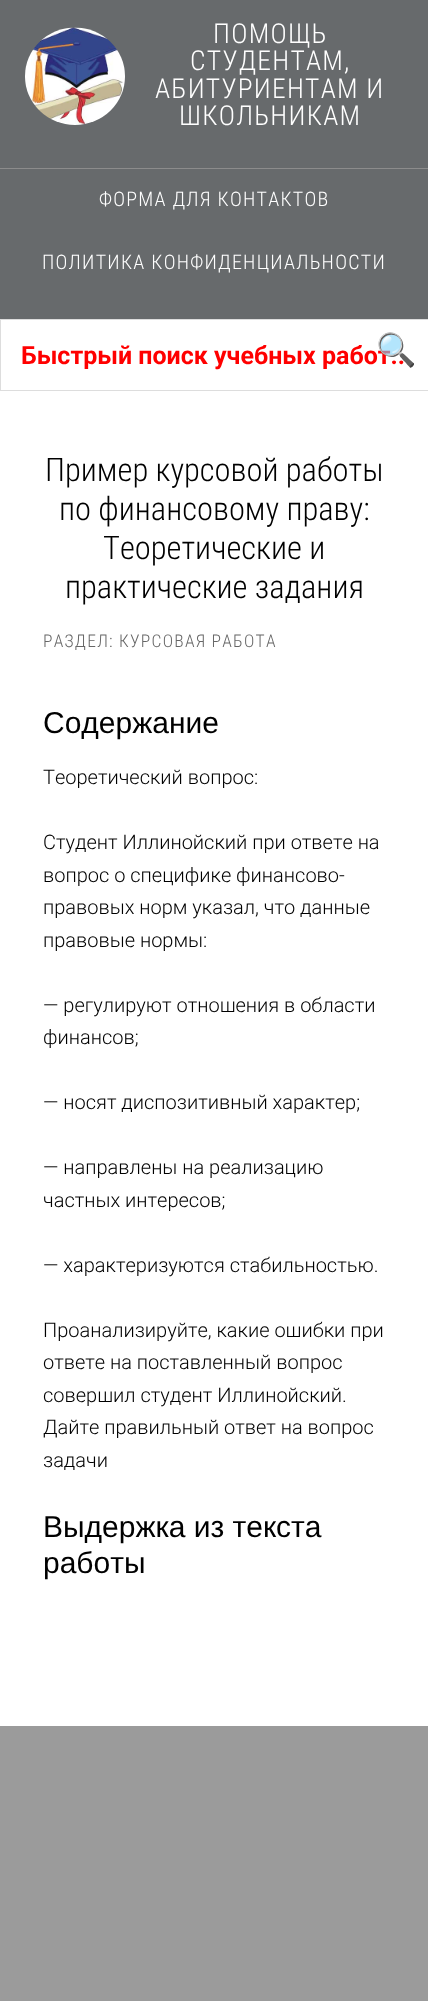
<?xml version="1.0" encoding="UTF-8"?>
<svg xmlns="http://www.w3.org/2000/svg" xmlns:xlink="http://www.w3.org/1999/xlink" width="428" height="2001">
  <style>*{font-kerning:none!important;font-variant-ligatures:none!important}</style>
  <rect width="100%" height="100%" fill="#9b9b9b" />
  <rect width="428" height="319" fill="#676a6c" />
  <image x="25" y="27" width="100" height="98" xlink:href="image1.png" />
  <rect y="168" width="428" height="1" fill="#8c8c8c" />
  <rect x="0.5" y="319.5" width="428" height="71" fill="#ffffff" stroke="#dddddd" />
  <rect y="391" width="428" height="1335" fill="#ffffff" />
  <text x="213" y="43" style="font-family: Roboto Condensed; font-size: 27.5px; font-weight: 300; letter-spacing: 1.25px; fill: #ffffff">ПОМОЩЬ</text>
  <text x="190" y="70" style="font-family: Roboto Condensed; font-size: 27.5px; font-weight: 300; letter-spacing: 1.25px; fill: #ffffff">СТУДЕНТАМ,</text>
  <text x="155" y="98" style="font-family: Roboto Condensed; font-size: 27.5px; font-weight: 300; letter-spacing: 1.25px; fill: #ffffff">АБИТУРИЕНТАМ И</text>
  <text x="179" y="125" style="font-family: Roboto Condensed; font-size: 27.5px; font-weight: 300; letter-spacing: 1.25px; fill: #ffffff">ШКОЛЬНИКАМ</text>
  <text x="99" y="206" style="font-family: Roboto Condensed; font-size: 20px; font-weight: 300; letter-spacing: 1.25px; fill: #ffffff">ФОРМА ДЛЯ КОНТАКТОВ</text>
  <text x="42" y="269" style="font-family: Roboto Condensed; font-size: 20px; font-weight: 300; letter-spacing: 1.25px; fill: #ffffff">ПОЛИТИКА КОНФИДЕНЦИАЛЬНОСТИ</text>
  <text x="21" y="364" style="font-family: Roboto; font-size: 25px; font-weight: bold; fill: #ff0000">Быстрый поиск учебных работ..</text>
  <text x="376" y="361" style="font-family: Noto Color Emoji; font-size: 32.5px; fill: #ccbcbc">🔍</text>
  <text x="45" y="481" style="font-family: Roboto Condensed; font-size: 32.5px; font-weight: 300; fill: #000000">Пример курсовой работы</text>
  <text x="59" y="520" style="font-family: Roboto Condensed; font-size: 32.5px; font-weight: 300; fill: #000000">по финансовому праву:</text>
  <text x="103" y="559" style="font-family: Roboto Condensed; font-size: 32.5px; font-weight: 300; fill: #000000">Теоретические и</text>
  <text x="65" y="598" style="font-family: Roboto Condensed; font-size: 32.5px; font-weight: 300; fill: #000000">практические задания</text>
  <text x="43" y="647" style="font-family: Roboto Condensed; font-size: 17.5px; font-weight: 300; letter-spacing: 1.25px; fill: #666666">РАЗДЕЛ: КУРСОВАЯ РАБОТА</text>
  <text x="43" y="733" style="font-family: Liberation Sans; font-size: 30px; fill: #000000">Содержание</text>
  <text x="43" y="784" style="font-family: Roboto; font-size: 20px; font-weight: 300; fill: #000000">Теоретический вопрос:</text>
  <text x="43" y="849" style="font-family: Roboto; font-size: 20px; font-weight: 300; fill: #000000">Студент Иллинойский при ответе на</text>
  <text x="43" y="882" style="font-family: Roboto; font-size: 20px; font-weight: 300; fill: #000000">вопрос о специфике финансово-</text>
  <text x="43" y="914" style="font-family: Roboto; font-size: 20px; font-weight: 300; fill: #000000">правовых норм указал, что данные</text>
  <text x="43" y="947" style="font-family: Roboto; font-size: 20px; font-weight: 300; fill: #000000">правовые нормы:</text>
  <text x="43" y="1012" style="font-family: Roboto; font-size: 20px; font-weight: 300; fill: #000000">— регулируют отношения в области</text>
  <text x="43" y="1044" style="font-family: Roboto; font-size: 20px; font-weight: 300; fill: #000000">финансов;</text>
  <text x="43" y="1109" style="font-family: Roboto; font-size: 20px; font-weight: 300; fill: #000000">— носят диспозитивный характер;</text>
  <text x="43" y="1174" style="font-family: Roboto; font-size: 20px; font-weight: 300; fill: #000000">— направлены на реализацию</text>
  <text x="43" y="1207" style="font-family: Roboto; font-size: 20px; font-weight: 300; fill: #000000">частных интересов;</text>
  <text x="43" y="1272" style="font-family: Roboto; font-size: 20px; font-weight: 300; fill: #000000">— характеризуются стабильностью.</text>
  <text x="43" y="1337" style="font-family: Roboto; font-size: 20px; font-weight: 300; fill: #000000">Проанализируйте, какие ошибки при</text>
  <text x="43" y="1369" style="font-family: Roboto; font-size: 20px; font-weight: 300; fill: #000000">ответе на поставленный вопрос</text>
  <text x="43" y="1402" style="font-family: Roboto; font-size: 20px; font-weight: 300; fill: #000000">совершил студент Иллинойский.</text>
  <text x="43" y="1434" style="font-family: Roboto; font-size: 20px; font-weight: 300; fill: #000000">Дайте правильный ответ на вопрос</text>
  <text x="43" y="1467" style="font-family: Roboto; font-size: 20px; font-weight: 300; fill: #000000">задачи</text>
  <text x="43" y="1537" style="font-family: Liberation Sans; font-size: 30px; fill: #000000">Выдержка из текста</text>
  <text x="43" y="1573" style="font-family: Liberation Sans; font-size: 30px; fill: #000000">работы</text>
</svg>
